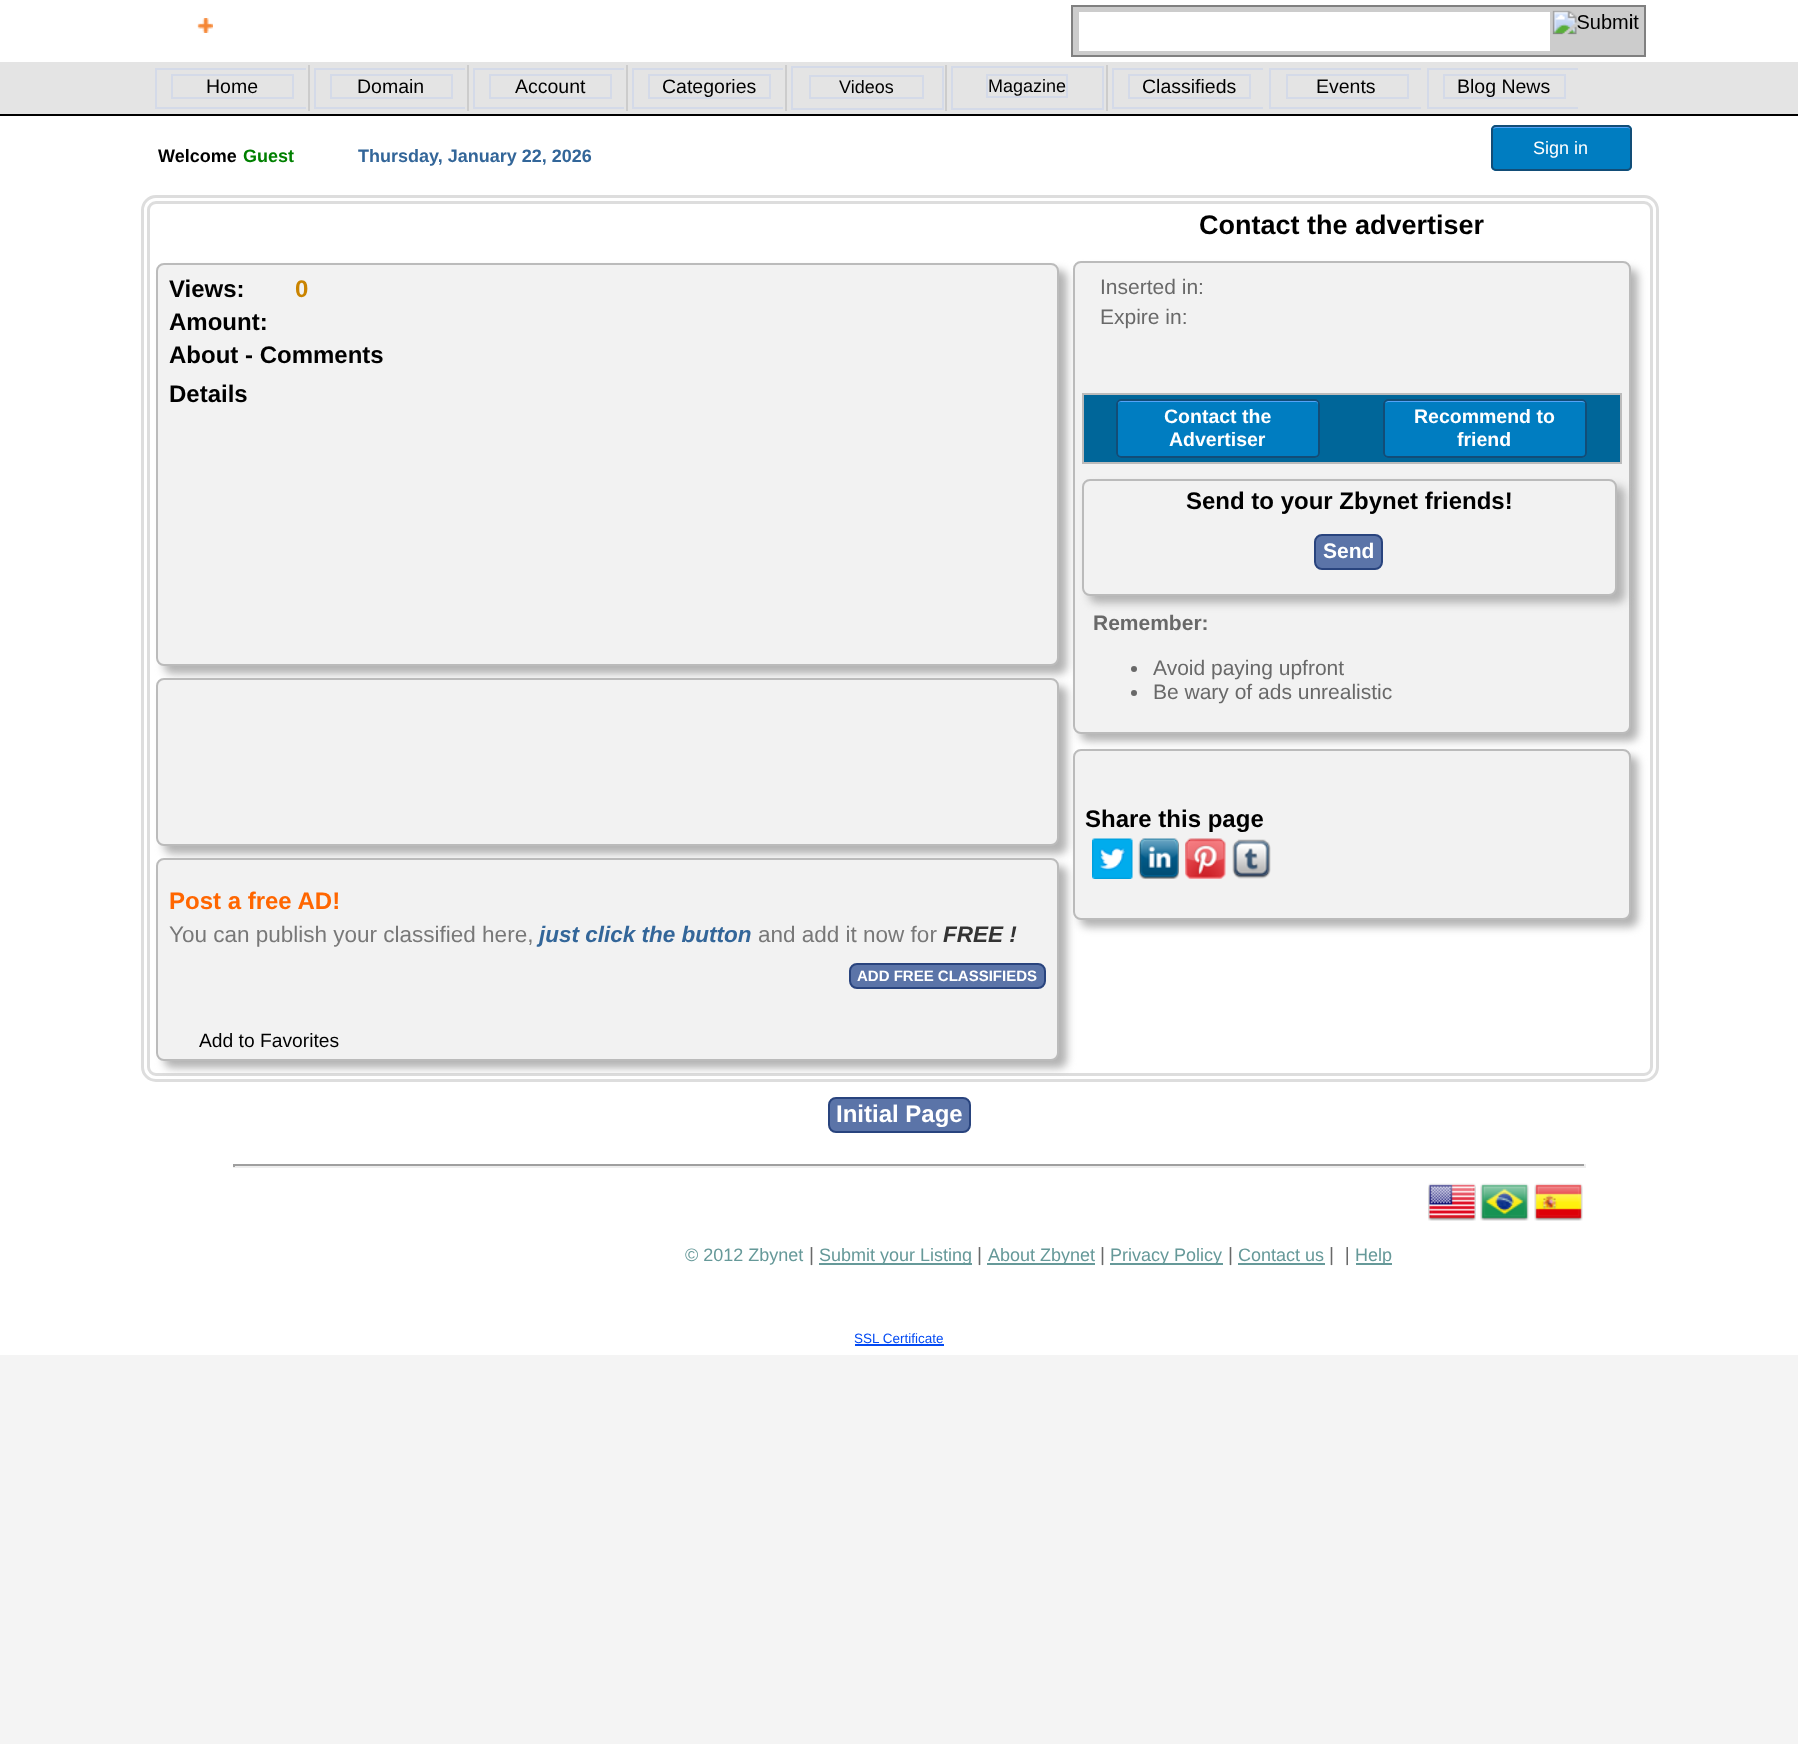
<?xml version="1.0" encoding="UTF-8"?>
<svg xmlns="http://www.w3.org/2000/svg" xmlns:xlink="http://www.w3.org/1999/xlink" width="1798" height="1744">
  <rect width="100%" height="100%" fill="#f4f4f4" />
  <rect width="1798" height="1355" fill="#ffffff" />
  <image x="197" y="18" width="16" height="15" xlink:href="image1.png" />
  <rect x="1072" y="6" width="573" height="50" fill="#cccccc" stroke="#808080" stroke-width="2" />
  <rect x="1079" y="12" width="471" height="39" fill="#ffffff" />
  <image x="1552" y="10" width="87" height="25" xlink:href="image2.png" />
  <rect y="62" width="1798" height="52" fill="#e4e4e4" />
  <rect y="114" width="1798" height="2" fill="#000000" />
  <rect x="308" y="65" width="2" height="46" fill="#cccccc" />
  <rect x="155" y="68" width="151" height="2" fill="#d4dae8" />
  <rect x="155" y="107" width="151" height="2" fill="#d4dae8" />
  <rect x="155" y="68" width="2" height="40" fill="#d4dae8" />
  <rect x="172" y="75" width="121" height="23" fill="none" stroke="#d4dae8" stroke-width="2" />
  <rect x="467" y="65" width="2" height="46" fill="#cccccc" />
  <rect x="314" y="68" width="151" height="2" fill="#d4dae8" />
  <rect x="314" y="107" width="151" height="2" fill="#d4dae8" />
  <rect x="314" y="68" width="2" height="40" fill="#d4dae8" />
  <rect x="331" y="75" width="121" height="23" fill="none" stroke="#d4dae8" stroke-width="2" />
  <rect x="626" y="65" width="2" height="46" fill="#cccccc" />
  <rect x="473" y="68" width="151" height="2" fill="#d4dae8" />
  <rect x="473" y="107" width="151" height="2" fill="#d4dae8" />
  <rect x="473" y="68" width="2" height="40" fill="#d4dae8" />
  <rect x="490" y="75" width="121" height="23" fill="none" stroke="#d4dae8" stroke-width="2" />
  <rect x="785" y="65" width="2" height="46" fill="#cccccc" />
  <rect x="632" y="68" width="151" height="2" fill="#d4dae8" />
  <rect x="632" y="107" width="151" height="2" fill="#d4dae8" />
  <rect x="632" y="68" width="2" height="40" fill="#d4dae8" />
  <rect x="649" y="75" width="121" height="23" fill="none" stroke="#d4dae8" stroke-width="2" />
  <rect x="945" y="65" width="2" height="46" fill="#cccccc" />
  <rect x="792" y="67" width="151" height="42" fill="none" stroke="#d4dae8" stroke-width="2" />
  <rect x="810" y="76" width="113" height="22" fill="none" stroke="#d4dae8" stroke-width="2" />
  <rect x="1106" y="65" width="2" height="46" fill="#cccccc" />
  <rect x="952" y="67" width="151" height="42" fill="none" stroke="#d4dae8" stroke-width="2" />
  <rect x="987" y="75" width="80" height="22" fill="none" stroke="#d4dae8" stroke-width="2" />
  <rect x="1112" y="68" width="151" height="2" fill="#d4dae8" />
  <rect x="1112" y="107" width="151" height="2" fill="#d4dae8" />
  <rect x="1112" y="68" width="2" height="40" fill="#d4dae8" />
  <rect x="1129" y="75" width="121" height="23" fill="none" stroke="#d4dae8" stroke-width="2" />
  <rect x="1269" y="68" width="152" height="2" fill="#d4dae8" />
  <rect x="1269" y="107" width="152" height="2" fill="#d4dae8" />
  <rect x="1269" y="68" width="2" height="40" fill="#d4dae8" />
  <rect x="1287" y="75" width="121" height="23" fill="none" stroke="#d4dae8" stroke-width="2" />
  <rect x="1427" y="68" width="151" height="2" fill="#d4dae8" />
  <rect x="1427" y="107" width="151" height="2" fill="#d4dae8" />
  <rect x="1427" y="68" width="2" height="40" fill="#d4dae8" />
  <rect x="1444" y="75" width="121" height="23" fill="none" stroke="#d4dae8" stroke-width="2" />
  <rect x="1491" y="125" width="141" height="46" rx="5" fill="#007dc1" />
  <path d="M 1496 128 h 132 c 1 0 2 1 2 2 v 39 c 1 0 1 -1 1 -2 v -38 c 0 -2 -1 -3 -3 -3 h -132 c -2 0 -3 1 -3 3 z" fill="#54a3f7" />
  <rect x="1492" y="126" width="139" height="44" rx="4" fill="none" stroke="#124d77" stroke-width="2" />
  <rect x="142.5" y="196.5" width="1515" height="884" rx="13.5" fill="none" stroke="#dddddd" stroke-width="3" />
  <rect x="148.5" y="202.5" width="1503" height="872" rx="7.5" fill="none" stroke="#dddddd" stroke-width="3" />
  <rect x="164" y="270" width="903" height="404" rx="8" fill="#b3b3b3" filter="blur(4px)" />
  <rect x="157" y="264" width="901" height="401" rx="7" fill="#f2f2f2" stroke="#bbbbbb" stroke-width="2" />
  <rect x="164" y="686" width="903" height="168" rx="8" fill="#b3b3b3" filter="blur(4px)" />
  <rect x="157" y="679" width="901" height="166" rx="7" fill="#f2f2f2" stroke="#bbbbbb" stroke-width="2" />
  <rect x="164" y="866" width="903" height="202" rx="8" fill="#b3b3b3" filter="blur(4px)" />
  <rect x="157" y="859" width="901" height="201" rx="7" fill="#f2f2f2" stroke="#bbbbbb" stroke-width="2" />
  <rect x="850" y="964" width="195" height="24" rx="7" fill="#5b74a8" stroke="#29447e" stroke-width="2" />
  <rect x="1080" y="269" width="558" height="472" rx="8" fill="#b3b3b3" filter="blur(4px)" />
  <rect x="1074" y="262" width="556" height="471" rx="7" fill="#f2f2f2" stroke="#bbbbbb" stroke-width="2" />
  <rect x="1083" y="394" width="538" height="69" fill="#006699" stroke="#bbbbbb" stroke-width="2" />
  <rect x="1116" y="399" width="204" height="59" rx="5" fill="#007dc1" />
  <path d="M 1120 402 h 196 c 1 0 2 1 2 3 v 50 c 1 0 1 -1 1 -2 v -49 c 0 -2 -1 -3 -3 -3 h -195 c -2 0 -3 1 -3 3 v 1 c 0 -2 1 -3 2 -3 z" fill="#54a3f7" />
  <rect x="1117" y="400" width="202" height="57" rx="4" fill="none" stroke="#124d77" stroke-width="2" />
  <rect x="1383" y="399" width="204" height="59" rx="5" fill="#007dc1" />
  <path d="M 1388 402 h 194 c 2 0 4 1 4 3 v -1 c 0 -2 -1 -3 -3 -3 h -195 c -1 0 -2 1 -3 2 z" fill="#54a3f7" />
  <rect x="1384" y="400" width="202" height="57" rx="4" fill="none" stroke="#124d77" stroke-width="2" />
  <rect x="1089" y="486" width="536" height="117" rx="8" fill="#b3b3b3" filter="blur(4px)" />
  <rect x="1083" y="480" width="533" height="115" rx="7" fill="#f2f2f2" stroke="#bbbbbb" stroke-width="2" />
  <rect x="1315" y="535" width="67" height="34" rx="7" fill="#5b74a8" stroke="#29447e" stroke-width="2" />
  <circle cx="1134" cy="669" r="3" fill="#696969" />
  <circle cx="1134" cy="693" r="3" fill="#696969" />
  <rect x="1080" y="756" width="558" height="171" rx="8" fill="#b3b3b3" filter="blur(4px)" />
  <rect x="1074" y="750" width="556" height="169" rx="7" fill="#f2f2f2" stroke="#bbbbbb" stroke-width="2" />
  <image x="1092" y="838" width="41" height="41" xlink:href="image3.png" />
  <image x="1138" y="838" width="41" height="41" xlink:href="image4.png" />
  <image x="1185" y="838" width="41" height="41" xlink:href="image5.png" />
  <image x="1232" y="839" width="39" height="40" xlink:href="image6.png" />
  <rect x="829" y="1098" width="141" height="34" rx="7" fill="#5b74a8" stroke="#29447e" stroke-width="2" />
  <rect x="233" y="1164" width="1353" height="2" fill="#9f9f9f" />
  <rect x="1584" y="1164" width="2" height="3" fill="#eeeeee" />
  <rect x="233" y="1166" width="1353" height="2" fill="#eeeeee" />
  <rect x="233" y="1164" width="2" height="3" fill="#9f9f9f" />
  <image x="1428" y="1183" width="48" height="38" xlink:href="image7.png" />
  <image x="1480" y="1183" width="49" height="38" xlink:href="image8.png" />
  <image x="1534" y="1183" width="49" height="38" xlink:href="image9.png" />
  <rect x="819" y="1263" width="153" height="2" fill="#669999" />
  <rect x="987" y="1263" width="108" height="2" fill="#669999" />
  <rect x="1110" y="1263" width="113" height="2" fill="#669999" />
  <rect x="1238" y="1263" width="87" height="2" fill="#669999" />
  <rect x="1356" y="1263" width="36" height="2" fill="#669999" />
  <rect x="855" y="1344" width="89" height="2" fill="#034af3" />
  <text x="1629" y="29" style="font-family: Liberation Sans; font-size: 20px; fill: #000000">i</text>
  <text x="206" y="93" style="font-family: Liberation Sans; font-size: 19.5px; fill: #000000">Home</text>
  <text x="357" y="93" style="font-family: Liberation Sans; font-size: 19.5px; fill: #000000">Domain</text>
  <text x="515" y="93" style="font-family: Liberation Sans; font-size: 19.5px; fill: #000000">Account</text>
  <text x="662" y="93" style="font-family: Liberation Sans; font-size: 19.5px; fill: #000000">Categories</text>
  <text x="839" y="93" style="font-family: Liberation Sans; font-size: 18px; fill: #000000">Videos</text>
  <text x="988" y="92" style="font-family: Liberation Sans; font-size: 18px; fill: #000000">Magazine</text>
  <text x="1142" y="93" style="font-family: Liberation Sans; font-size: 19.5px; fill: #000000">Classifieds</text>
  <text x="1316" y="93" style="font-family: Liberation Sans; font-size: 19.5px; fill: #000000">Events</text>
  <text x="1457" y="93" style="font-family: Liberation Sans; font-size: 19.5px; fill: #000000">Blog News</text>
  <text x="158" y="162" style="font-family: Liberation Sans; font-size: 18px; font-weight: bold; fill: #000000">Welcome</text>
  <text x="243" y="162" style="font-family: Liberation Sans; font-size: 18px; font-weight: bold; fill: #008000">Guest</text>
  <text x="358" y="162" style="font-family: Liberation Sans; font-size: 18px; font-weight: bold; fill: #336699">Thursday, January 22, 2026</text>
  <text x="1533" y="154" style="font-family: Liberation Sans; font-size: 18px; fill: #ffffff">Sign in</text>
  <text x="169" y="297" style="font-family: Liberation Sans; font-size: 24px; font-weight: bold; fill: #000000">Views:</text>
  <text x="295" y="297" style="font-family: Liberation Sans; font-size: 24px; font-weight: bold; fill: #ca8400">0</text>
  <text x="169" y="330" style="font-family: Liberation Sans; font-size: 24px; font-weight: bold; fill: #000000">Amount:</text>
  <text x="169" y="363" style="font-family: Liberation Sans; font-size: 24px; font-weight: bold; fill: #000000">About - Comments</text>
  <text x="169" y="402" style="font-family: Liberation Sans; font-size: 24px; font-weight: bold; fill: #000000">Details</text>
  <text x="169" y="909" style="font-family: Liberation Sans; font-size: 24px; font-weight: bold; fill: #ff6600">Post a free AD!</text>
  <text x="169" y="942" style="font-family: Liberation Sans; font-size: 22.5px; fill: #787878">You can publish your classified here,</text>
  <text x="539" y="942" style="font-family: Liberation Sans; font-size: 22.5px; font-weight: bold; font-style: italic; fill: #336699">just click the button</text>
  <text x="758" y="942" style="font-family: Liberation Sans; font-size: 22.5px; fill: #787878">and add it now for</text>
  <text x="943" y="942" style="font-family: Liberation Sans; font-size: 22.5px; font-weight: bold; font-style: italic; fill: #333333">FREE !</text>
  <text x="857" y="981" style="font-family: Liberation Sans; font-size: 15px; font-weight: bold; fill: #ffffff">ADD FREE CLASSIFIEDS</text>
  <text x="199" y="1047" style="font-family: Liberation Sans; font-size: 19.25px; fill: #000000">Add to Favorites</text>
  <text x="1199" y="234" style="font-family: Liberation Sans; font-size: 27px; font-weight: bold; fill: #000000">Contact the advertiser</text>
  <text x="1100" y="294" style="font-family: Liberation Sans; font-size: 21px; fill: #696969">Inserted in:</text>
  <text x="1100" y="324" style="font-family: Liberation Sans; font-size: 21px; fill: #696969">Expire in:</text>
  <text x="1164" y="423" style="font-family: Liberation Sans; font-size: 19.5px; font-weight: bold; fill: #ffffff">Contact the</text>
  <text x="1169" y="446" style="font-family: Liberation Sans; font-size: 19.5px; font-weight: bold; fill: #ffffff">Advertiser</text>
  <text x="1414" y="423" style="font-family: Liberation Sans; font-size: 19.5px; font-weight: bold; fill: #ffffff">Recommend to</text>
  <text x="1457" y="446" style="font-family: Liberation Sans; font-size: 19.5px; font-weight: bold; fill: #ffffff">friend</text>
  <text x="1186" y="509" style="font-family: Liberation Sans; font-size: 24px; font-weight: bold; fill: #000000">Send to your Zbynet friends!</text>
  <text x="1323" y="558" style="font-family: Liberation Sans; font-size: 21px; font-weight: bold; fill: #ffffff">Send</text>
  <text x="1093" y="630" style="font-family: Liberation Sans; font-size: 21px; font-weight: bold; fill: #696969">Remember:</text>
  <text x="1153" y="675" style="font-family: Liberation Sans; font-size: 21px; fill: #696969">Avoid paying upfront</text>
  <text x="1153" y="699" style="font-family: Liberation Sans; font-size: 21px; fill: #696969">Be wary of ads unrealistic</text>
  <text x="1085" y="827" style="font-family: Liberation Sans; font-size: 24px; font-weight: bold; fill: #000000">Share this page</text>
  <text x="836" y="1122" style="font-family: Liberation Sans; font-size: 24px; font-weight: bold; fill: #ffffff">Initial Page</text>
  <text x="685" y="1261" style="font-family: Liberation Sans; font-size: 18px; fill: #669999">© 2012 Zbynet</text>
  <text x="809" y="1261" style="font-family: Liberation Sans; font-size: 19.25px; fill: #696969">|</text>
  <text x="819" y="1261" style="font-family: Liberation Sans; font-size: 18px; fill: #669999">Submit your Listing</text>
  <text x="977" y="1261" style="font-family: Liberation Sans; font-size: 19.25px; fill: #696969">|</text>
  <text x="988" y="1261" style="font-family: Liberation Sans; font-size: 18px; fill: #669999">About Zbynet</text>
  <text x="1100" y="1261" style="font-family: Liberation Sans; font-size: 19.25px; fill: #696969">|</text>
  <text x="1110" y="1261" style="font-family: Liberation Sans; font-size: 18px; fill: #669999">Privacy Policy</text>
  <text x="1228" y="1261" style="font-family: Liberation Sans; font-size: 19.25px; fill: #696969">|</text>
  <text x="1238" y="1261" style="font-family: Liberation Sans; font-size: 18px; fill: #669999">Contact us</text>
  <text x="1329" y="1261" style="font-family: Liberation Sans; font-size: 19.25px; fill: #696969" xml:space="preserve">|  |</text>
  <text x="1355" y="1261" style="font-family: Liberation Sans; font-size: 18px; fill: #669999">Help</text>
  <text x="854" y="1343" style="font-family: Liberation Sans; font-size: 13.5px; fill: #034af3">SSL Certificate</text>
</svg>
